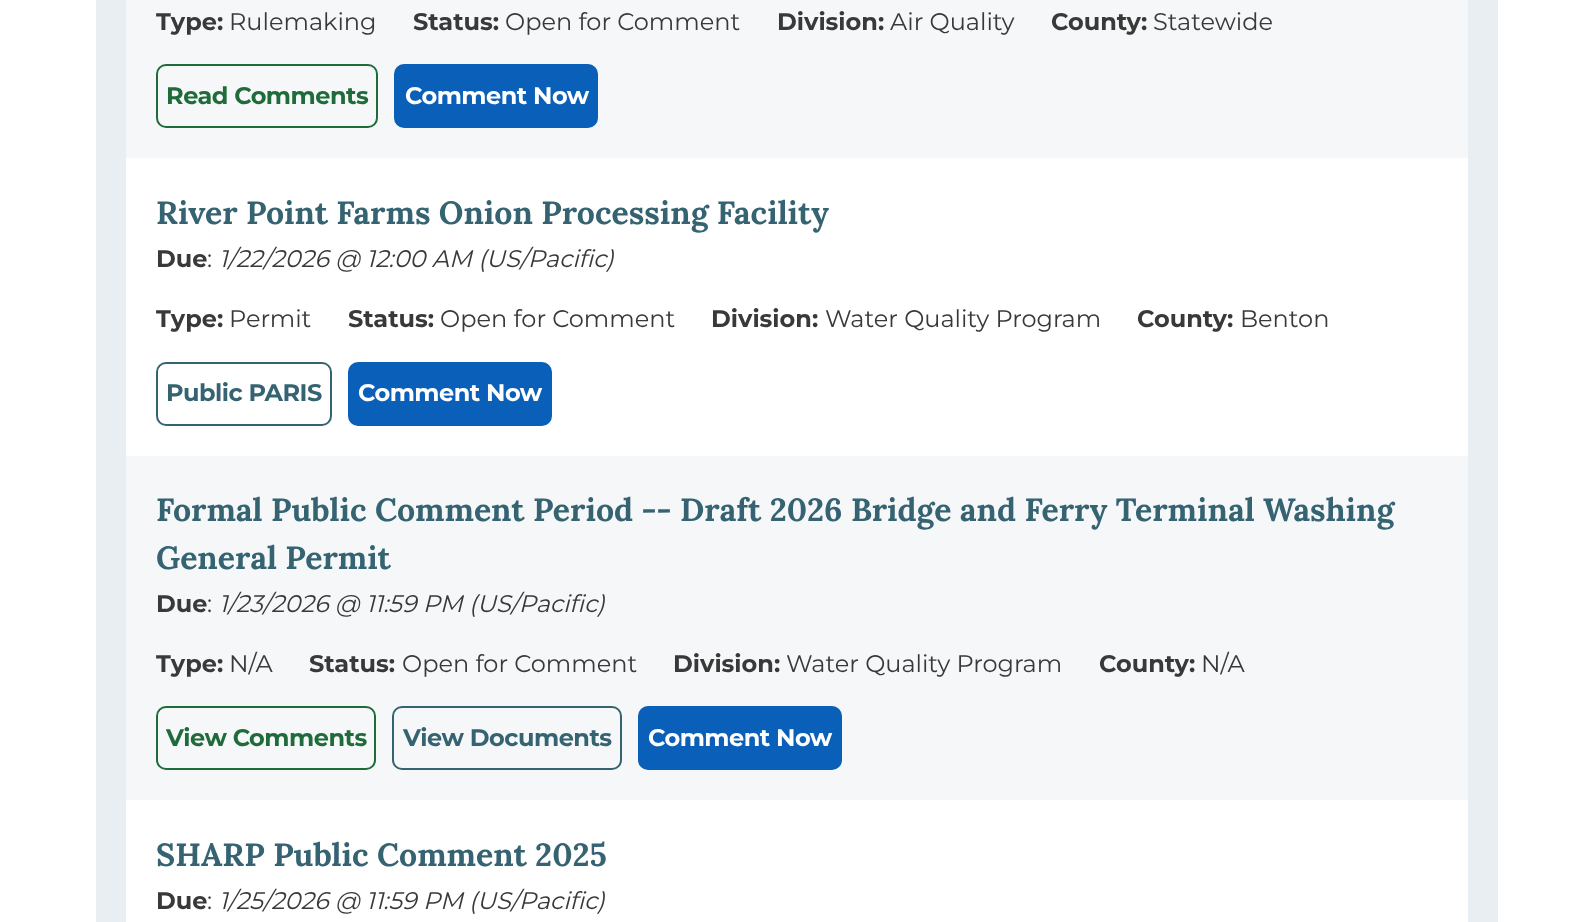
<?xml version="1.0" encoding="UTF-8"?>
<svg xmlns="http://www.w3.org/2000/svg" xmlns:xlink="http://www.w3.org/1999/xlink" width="1594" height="922">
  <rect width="100%" height="100%" fill="#ffffff" />
  <rect x="96" width="1402" height="922" fill="#e8eef1" />
  <rect x="126" width="1342" height="158" fill="#f5f7f8" />
  <rect x="157" y="65" width="220" height="62" rx="9" fill="none" stroke="#1f6b3a" stroke-width="2" />
  <rect x="395" y="65" width="202" height="62" rx="9" fill="#0a5fb8" stroke="#0a5fb8" stroke-width="2" />
  <rect x="126" y="158" width="1342" height="298" fill="#ffffff" />
  <rect x="157" y="363" width="174" height="62" rx="9" fill="none" stroke="#356372" stroke-width="2" />
  <rect x="349" y="363" width="202" height="62" rx="9" fill="#0a5fb8" stroke="#0a5fb8" stroke-width="2" />
  <rect x="126" y="456" width="1342" height="344" fill="#f5f7f8" />
  <rect x="157" y="707" width="218" height="62" rx="9" fill="none" stroke="#1f6b3a" stroke-width="2" />
  <rect x="393" y="707" width="228" height="62" rx="9" fill="none" stroke="#356372" stroke-width="2" />
  <rect x="639" y="707" width="202" height="62" rx="9" fill="#0a5fb8" stroke="#0a5fb8" stroke-width="2" />
  <rect x="126" y="800" width="1342" height="122" fill="#ffffff" />
  <text x="156" y="30" style="font-family: Montserrat; font-size: 24px; font-weight: bold; fill: #393939">Type:</text>
  <text x="229" y="30" style="font-family: Montserrat; font-size: 24px; fill: #393939">Rulemaking</text>
  <text x="413" y="30" style="font-family: Montserrat; font-size: 24px; font-weight: bold; fill: #393939">Status:</text>
  <text x="505" y="30" style="font-family: Montserrat; font-size: 24px; fill: #393939">Open for Comment</text>
  <text x="777" y="30" style="font-family: Montserrat; font-size: 24px; font-weight: bold; fill: #393939">Division:</text>
  <text x="890" y="30" style="font-family: Montserrat; font-size: 24px; fill: #393939">Air Quality</text>
  <text x="1051" y="30" style="font-family: Montserrat; font-size: 24px; font-weight: bold; fill: #393939">County:</text>
  <text x="1153" y="30" style="font-family: Montserrat; font-size: 24px; fill: #393939">Statewide</text>
  <text x="166" y="104" style="font-family: Montserrat; font-size: 24px; font-weight: bold; letter-spacing: -0.5px; fill: #1f6b3a">Read Comments</text>
  <text x="405" y="104" style="font-family: Montserrat; font-size: 24px; font-weight: bold; letter-spacing: -0.5px; fill: #ffffff">Comment Now</text>
  <text x="156" y="224" style="font-family: Lora; font-size: 32px; font-weight: bold; fill: #356372">River Point Farms Onion Processing Facility</text>
  <text x="156" y="267" style="font-family: Montserrat; font-size: 24px; font-weight: bold; fill: #393939">Due</text>
  <text x="207" y="267" style="font-family: Montserrat; font-size: 24px; fill: #393939">:</text>
  <text x="219" y="267" style="font-family: Montserrat; font-size: 24px; font-style: italic; fill: #393939">1/22/2026 @ 12:00 AM (US/Pacific)</text>
  <text x="156" y="327" style="font-family: Montserrat; font-size: 24px; font-weight: bold; fill: #393939">Type:</text>
  <text x="229" y="327" style="font-family: Montserrat; font-size: 24px; fill: #393939">Permit</text>
  <text x="348" y="327" style="font-family: Montserrat; font-size: 24px; font-weight: bold; fill: #393939">Status:</text>
  <text x="440" y="327" style="font-family: Montserrat; font-size: 24px; fill: #393939">Open for Comment</text>
  <text x="711" y="327" style="font-family: Montserrat; font-size: 24px; font-weight: bold; fill: #393939">Division:</text>
  <text x="825" y="327" style="font-family: Montserrat; font-size: 24px; fill: #393939">Water Quality Program</text>
  <text x="1137" y="327" style="font-family: Montserrat; font-size: 24px; font-weight: bold; fill: #393939">County:</text>
  <text x="1240" y="327" style="font-family: Montserrat; font-size: 24px; fill: #393939">Benton</text>
  <text x="166" y="401" style="font-family: Montserrat; font-size: 24px; font-weight: bold; letter-spacing: -0.5px; fill: #356372">Public PARIS</text>
  <text x="358" y="401" style="font-family: Montserrat; font-size: 24px; font-weight: bold; letter-spacing: -0.5px; fill: #ffffff">Comment Now</text>
  <text x="156" y="521" style="font-family: Lora; font-size: 32px; font-weight: bold; fill: #356372">Formal Public Comment Period -- Draft 2026 Bridge and Ferry Terminal Washing</text>
  <text x="156" y="569" style="font-family: Lora; font-size: 32px; font-weight: bold; fill: #356372">General Permit</text>
  <text x="156" y="612" style="font-family: Montserrat; font-size: 24px; font-weight: bold; fill: #393939">Due</text>
  <text x="207" y="612" style="font-family: Montserrat; font-size: 24px; fill: #393939">:</text>
  <text x="219" y="612" style="font-family: Montserrat; font-size: 24px; font-style: italic; fill: #393939">1/23/2026 @ 11:59 PM (US/Pacific)</text>
  <text x="156" y="672" style="font-family: Montserrat; font-size: 24px; font-weight: bold; fill: #393939">Type:</text>
  <text x="229" y="672" style="font-family: Montserrat; font-size: 24px; fill: #393939">N/A</text>
  <text x="309" y="672" style="font-family: Montserrat; font-size: 24px; font-weight: bold; fill: #393939">Status:</text>
  <text x="402" y="672" style="font-family: Montserrat; font-size: 24px; fill: #393939">Open for Comment</text>
  <text x="673" y="672" style="font-family: Montserrat; font-size: 24px; font-weight: bold; fill: #393939">Division:</text>
  <text x="786" y="672" style="font-family: Montserrat; font-size: 24px; fill: #393939">Water Quality Program</text>
  <text x="1099" y="672" style="font-family: Montserrat; font-size: 24px; font-weight: bold; fill: #393939">County:</text>
  <text x="1201" y="672" style="font-family: Montserrat; font-size: 24px; fill: #393939">N/A</text>
  <text x="166" y="746" style="font-family: Montserrat; font-size: 24px; font-weight: bold; letter-spacing: -0.5px; fill: #1f6b3a">View Comments</text>
  <text x="403" y="746" style="font-family: Montserrat; font-size: 24px; font-weight: bold; letter-spacing: -0.5px; fill: #356372">View Documents</text>
  <text x="648" y="746" style="font-family: Montserrat; font-size: 24px; font-weight: bold; letter-spacing: -0.5px; fill: #ffffff">Comment Now</text>
  <text x="156" y="866" style="font-family: Lora; font-size: 32px; font-weight: bold; fill: #356372">SHARP Public Comment 2025</text>
  <text x="156" y="909" style="font-family: Montserrat; font-size: 24px; font-weight: bold; fill: #393939">Due</text>
  <text x="207" y="909" style="font-family: Montserrat; font-size: 24px; fill: #393939">:</text>
  <text x="219" y="909" style="font-family: Montserrat; font-size: 24px; font-style: italic; fill: #393939">1/25/2026 @ 11:59 PM (US/Pacific)</text>
</svg>
